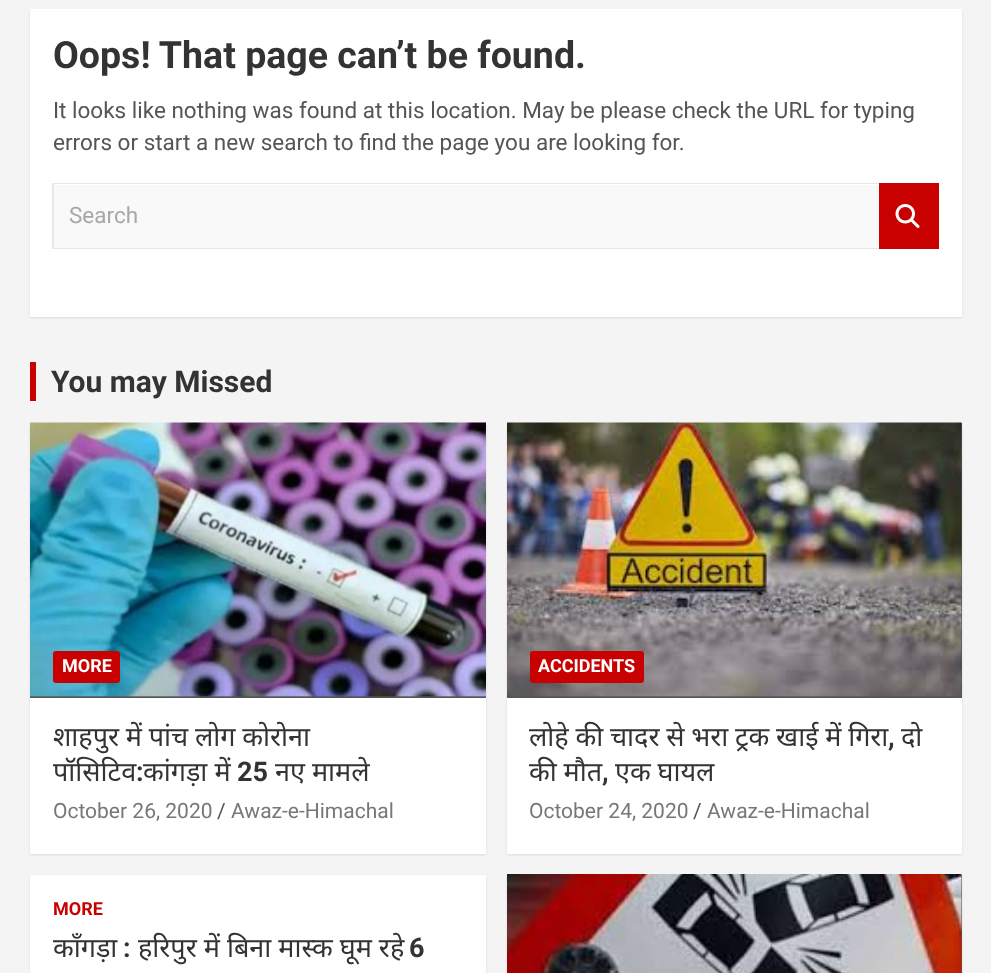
<?xml version="1.0" encoding="UTF-8"?>
<svg xmlns="http://www.w3.org/2000/svg" xmlns:xlink="http://www.w3.org/1999/xlink" width="991" height="973">
  <rect width="100%" height="100%" fill="#f4f4f4" />
  <rect x="30" y="11" width="932" height="307" fill="#000000" fill-opacity="0.1" filter="blur(1px)" />
  <rect x="30" y="9" width="932" height="308" fill="#ffffff" />
  <rect x="54" y="185" width="825" height="63" fill="#f9f9f9" />
  <path d="M 52 183 h 827 v 1 h -825 z" fill="#e8e8e8" />
  <path d="M 879 249 h -827 l 2 -1 h 825 z" fill="#e8e8e8" />
  <path d="M 52 249 v -66 l 2 1 v 64 z" fill="#000000" fill-opacity="0.09" />
  <rect x="879" y="183" width="60" height="66" fill="#c80000" />
  <image x="895" y="204" width="25" height="24" xlink:href="image1.png" />
  <rect x="30" y="362" width="6" height="39" fill="#c80000" />
  <rect x="30" y="425" width="456" height="430" fill="#000000" fill-opacity="0.1" filter="blur(1px)" />
  <rect x="30" y="698" width="456" height="156" fill="#ffffff" />
  <rect x="30" y="696" width="456" height="2" fill="#555555" />
  <image x="30" y="422" width="456" height="275" xlink:href="image2.png" />
  <rect x="53" y="651" width="67" height="32" rx="3" fill="#c80000" />
  <rect x="507" y="425" width="455" height="430" fill="#000000" fill-opacity="0.1" filter="blur(1px)" />
  <rect x="507" y="698" width="455" height="156" fill="#ffffff" />
  <rect x="507" y="423" width="455" height="275" fill="#555555" />
  <image x="507" y="422" width="455" height="275" xlink:href="image3.png" />
  <rect x="530" y="651" width="114" height="32" rx="3" fill="#c80000" />
  <rect x="30" y="876" width="456" height="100" fill="#000000" fill-opacity="0.1" filter="blur(1px)" />
  <rect x="30" y="875" width="456" height="98" fill="#ffffff" />
  <rect x="507" y="876" width="455" height="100" fill="#000000" fill-opacity="0.1" filter="blur(1px)" />
  <rect x="961" y="875" width="1" height="98" fill="#555555" />
  <image x="507" y="874" width="455" height="99" xlink:href="image4.png" />
  <text x="53" y="68" style="font-family: Roboto; font-size: 37.5px; font-weight: bold; fill: #333333">Oops! That page can’t be found.</text>
  <text x="53" y="118" style="font-family: Roboto; font-size: 22.5px; fill: #555555">It looks like nothing was found at this location. May be please check the URL for typing</text>
  <text x="53" y="150" style="font-family: Roboto; font-size: 22.5px; fill: #555555">errors or start a new search to find the page you are looking for.</text>
  <text x="69" y="223" style="font-family: Roboto; font-size: 22.5px; fill: #a7a7a7">Search</text>
  <text x="51" y="392" style="font-family: Roboto; font-size: 30px; font-weight: bold; fill: #333333">You may Missed</text>
  <text x="62" y="672" style="font-family: Roboto; font-size: 18px; font-weight: bold; fill: #ffffff">MORE</text>
  <text x="53" y="746" word-spacing="-0.25" style="font-family: Noto Sans; font-size: 27px; fill: #333333">शाहपुर में पांच लोग कोरोना</text>
  <text x="53" y="781" style="font-family: Noto Sans; font-size: 27px; fill: #333333">पॉसिटिव</text>
  <text x="237" y="781" style="font-family: Roboto; font-size: 27px; font-weight: bold; fill: #333333">25</text>
  <text x="275" y="781" style="font-family: Noto Sans; font-size: 27px; fill: #333333">नए मामले</text>
  <text x="136" y="781" style="font-family: Roboto; font-size: 27px; font-weight: bold; fill: #333333">:</text>
  <text x="143" y="781" style="font-family: Noto Sans; font-size: 27px; fill: #333333">कांगड़ा में</text>
  <text x="53" y="818" style="font-family: Roboto; font-size: 21px; fill: #777777">October 26, 2020</text>
  <text x="217" y="818" style="font-family: Roboto; font-size: 21px; fill: #555555">/</text>
  <text x="231" y="818" style="font-family: Roboto; font-size: 21px; fill: #777777">Awaz-e-Himachal</text>
  <text x="538" y="672" style="font-family: Roboto; font-size: 18px; font-weight: bold; fill: #ffffff">ACCIDENTS</text>
  <text x="529" y="746" word-spacing="-0.25" style="font-family: Noto Sans; font-size: 27px; fill: #333333">लोहे की चादर से भरा ट्रक खाई में गिरा</text>
  <text x="888" y="746" style="font-family: Roboto; font-size: 27px; font-weight: bold; fill: #333333">,</text>
  <text x="901" y="746" style="font-family: Noto Sans; font-size: 27px; fill: #333333">दो</text>
  <text x="529" y="781" word-spacing="-0.25" style="font-family: Noto Sans; font-size: 27px; fill: #333333">की मौत</text>
  <text x="602" y="781" style="font-family: Roboto; font-size: 27px; font-weight: bold; fill: #333333">,</text>
  <text x="615" y="781" word-spacing="-0.25" style="font-family: Noto Sans; font-size: 27px; fill: #333333">एक घायल</text>
  <text x="529" y="818" style="font-family: Roboto; font-size: 21px; fill: #777777">October 24, 2020</text>
  <text x="693" y="818" style="font-family: Roboto; font-size: 21px; fill: #555555">/</text>
  <text x="707" y="818" style="font-family: Roboto; font-size: 21px; fill: #777777">Awaz-e-Himachal</text>
  <text x="53" y="915" style="font-family: Roboto; font-size: 18px; font-weight: bold; fill: #c80000">MORE</text>
  <text x="53" y="957" style="font-family: Noto Sans; font-size: 27px; fill: #333333">काँगड़ा</text>
  <text x="123" y="957" style="font-family: Roboto; font-size: 27px; font-weight: bold; fill: #333333">:</text>
  <text x="138" y="957" style="font-family: Noto Sans; font-size: 27px; fill: #333333">हरिपुर में बिना मास्क घूम रहे</text>
  <text x="409" y="957" style="font-family: Roboto; font-size: 27px; font-weight: bold; fill: #333333">6</text>
</svg>
